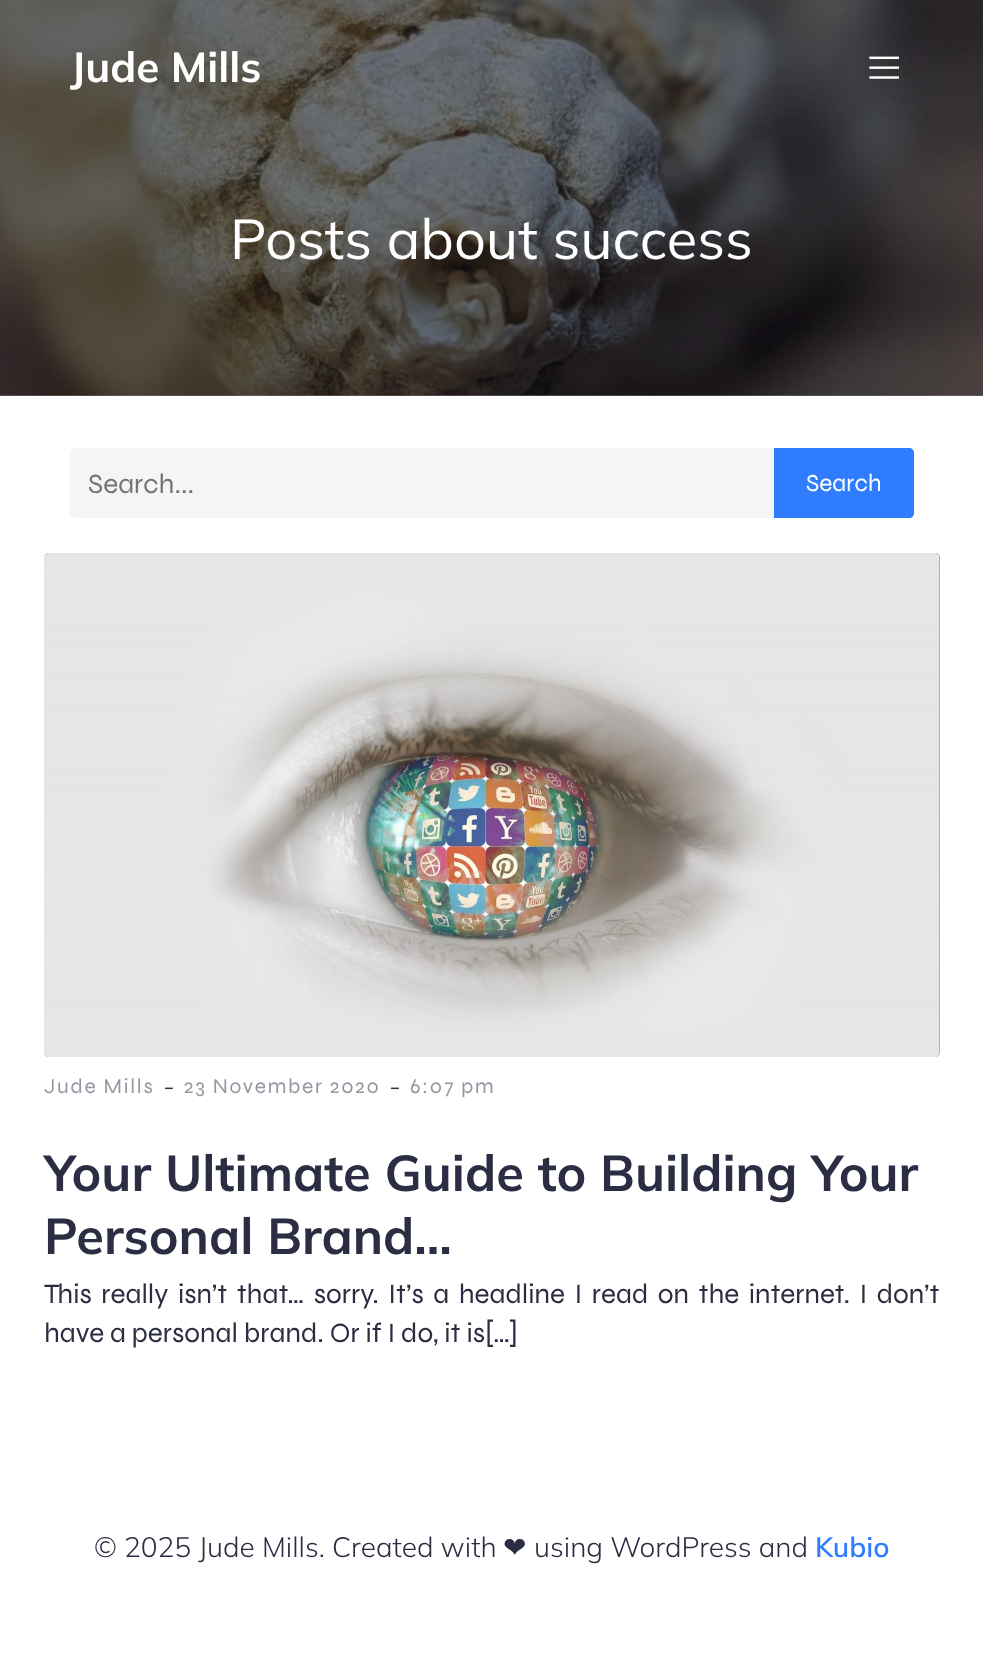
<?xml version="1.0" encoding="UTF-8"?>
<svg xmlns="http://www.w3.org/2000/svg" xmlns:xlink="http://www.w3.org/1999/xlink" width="983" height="1661">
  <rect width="100%" height="100%" fill="#ffffff" />
  <rect y="395" width="983" height="1" fill="#707176" />
  <image x="0" y="0" width="983" height="396" xlink:href="image2.png" />
  <image x="869" y="56" width="30" height="23" xlink:href="image1.png" />
  <path d="M 75 448 h 699 v 70 h -699 c -3 0 -5 -2 -5 -5 v -60 c 0 -3 2 -5 5 -5 z" fill="#f4f5f6" />
  <path d="M 774 448 h 135 c 3 0 5 2 5 5 v 60 c 0 3 -2 5 -5 5 h -135 z" fill="#2f7cff" />
  <rect x="44" y="553" width="896" height="504" rx="5" fill="#69768b" />
  <image x="44" y="553" width="896" height="504" xlink:href="image3.png" />
  <text x="70" y="82" style="font-family: Mulish; font-size: 42px; font-weight: bold; fill: #ffffff">Jude Mills</text>
  <text x="230" y="259" style="font-family: Mulish; font-size: 56px; fill: #ffffff">Posts about success</text>
  <text x="88" y="493" style="font-family: Syne; font-size: 28px; fill: #757575">Search...</text>
  <text x="806" y="491" style="font-family: Syne; font-size: 24.5px; fill: #ffffff">Search</text>
  <text x="44" y="1093" style="font-family: Syne; font-size: 21px; letter-spacing: 1.75px; fill: #9596a1">Jude Mills</text>
  <text x="163" y="1096" style="font-family: Mulish; font-size: 28px; font-weight: 300; fill: #2b2d42">-</text>
  <text x="184" y="1093" style="font-family: Syne; font-size: 21px; letter-spacing: 1.75px; fill: #9596a1">23 November 2020</text>
  <text x="389" y="1096" style="font-family: Mulish; font-size: 28px; font-weight: 300; fill: #2b2d42">-</text>
  <text x="410" y="1093" style="font-family: Syne; font-size: 21px; letter-spacing: 1.75px; fill: #9596a1">6:07 pm</text>
  <text x="44" y="1191" style="font-family: Mulish; font-size: 50.4px; font-weight: bold; fill: #2b2d42">Your Ultimate Guide to Building Your</text>
  <text x="44" y="1254" style="font-family: Mulish; font-size: 50.4px; font-weight: bold; fill: #2b2d42">Personal Brand…</text>
  <text x="44" y="1303" word-spacing="3.6" style="font-family: Syne; font-size: 28px; fill: #2b2d42">This really isn’t that… sorry. It’s a headline I read on the internet. I don’t</text>
  <text x="44" y="1342" style="font-family: Syne; font-size: 28px; fill: #2b2d42">have a personal brand. Or if I do, it is[…]</text>
  <text x="94" y="1557" style="font-family: Mulish; font-size: 28px; font-weight: 300; fill: #2b2d42">© 2025 Jude Mills. Created with</text>
  <text x="503" y="1557" style="font-family: DejaVu Sans; font-size: 28px; fill: #2b2d42">❤</text>
  <text x="534" y="1557" style="font-family: Mulish; font-size: 28px; font-weight: 300; fill: #2b2d42">using WordPress and</text>
  <text x="815" y="1557" style="font-family: Mulish; font-size: 28px; font-weight: 600; fill: #2f7cff">Kubio</text>
</svg>
